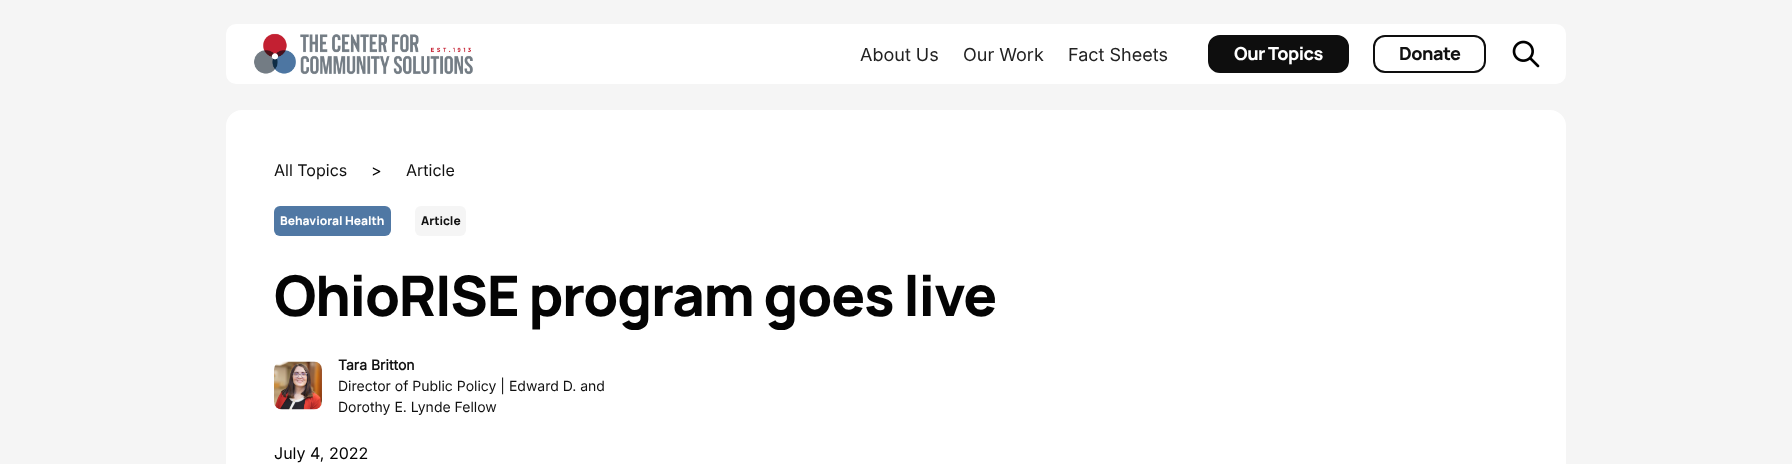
<?xml version="1.0" encoding="UTF-8"?>
<svg xmlns="http://www.w3.org/2000/svg" xmlns:xlink="http://www.w3.org/1999/xlink" width="1792" height="464">
  <defs>
    <clipPath id="clip1"><rect x="274" y="260" width="1244" height="70" /></clipPath>
  </defs>
  <rect width="100%" height="100%" fill="#f5f5f5" />
  <rect x="226" y="24" width="1340" height="60" rx="10" fill="#ffffff" />
  <image x="254" y="33" width="219" height="42" xlink:href="image1.png" />
  <rect x="1209" y="36" width="139" height="36" rx="11" fill="#0e0e0e" stroke="#0e0e0e" stroke-width="2" />
  <rect x="1374" y="36" width="111" height="36" rx="11" fill="none" stroke="#0e0e0e" stroke-width="2" />
  <image x="1512" y="40" width="28" height="28" xlink:href="image2.png" />
  <rect x="226" y="110" width="1340" height="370" rx="16" fill="#ffffff" />
  <rect x="274" y="206" width="117" height="30" rx="6" fill="#5078a4" />
  <rect x="415" y="206" width="51" height="30" rx="6" fill="#f5f5f5" />
  <image x="274" y="361" width="48" height="49" xlink:href="image3.png" />
  <text x="860" y="61" style="font-family: Inter; font-size: 18px; fill: #222222">About Us</text>
  <text x="963" y="61" style="font-family: Inter; font-size: 18px; fill: #222222">Our Work</text>
  <text x="1068" y="61" style="font-family: Inter; font-size: 18px; fill: #222222">Fact Sheets</text>
  <text x="1234" y="60" style="font-family: Manrope; font-size: 18px; font-weight: 800; letter-spacing: -0.5px; fill: #ffffff">Our Topics</text>
  <text x="1399" y="60" style="font-family: Manrope; font-size: 18px; font-weight: 800; letter-spacing: -0.5px; fill: #111111">Donate</text>
  <text x="274" y="176" style="font-family: Inter; font-size: 16px; fill: #111111">All Topics</text>
  <text x="371" y="176" style="font-family: Inter; font-size: 16px; fill: #040404">&gt;</text>
  <text x="406" y="176" style="font-family: Inter; font-size: 16px; fill: #111111">Article</text>
  <text x="280" y="225" style="font-family: Manrope; font-size: 12px; font-weight: 800; fill: #ffffff">Behavioral Health</text>
  <text x="421" y="225" style="font-family: Manrope; font-size: 12px; font-weight: 800; fill: #111111">Article</text>
  <g clip-path="url(#clip1)">
    <text x="274" y="316" style="font-family: Manrope; font-size: 56px; font-weight: 800; letter-spacing: -1.25px; fill: #040404">OhioRISE program goes live</text>
  </g>
  <text x="338" y="370" style="font-family: Inter; font-size: 14px; font-weight: bold; fill: #111111">Tara Britton</text>
  <text x="338" y="391" style="font-family: Inter; font-size: 14px; fill: #111111">Director of Public Policy | Edward D. and</text>
  <text x="338" y="412" style="font-family: Inter; font-size: 14px; fill: #111111">Dorothy E. Lynde Fellow</text>
  <text x="274" y="459" style="font-family: Inter; font-size: 16px; fill: #040404">July 4, 2022</text>
</svg>
